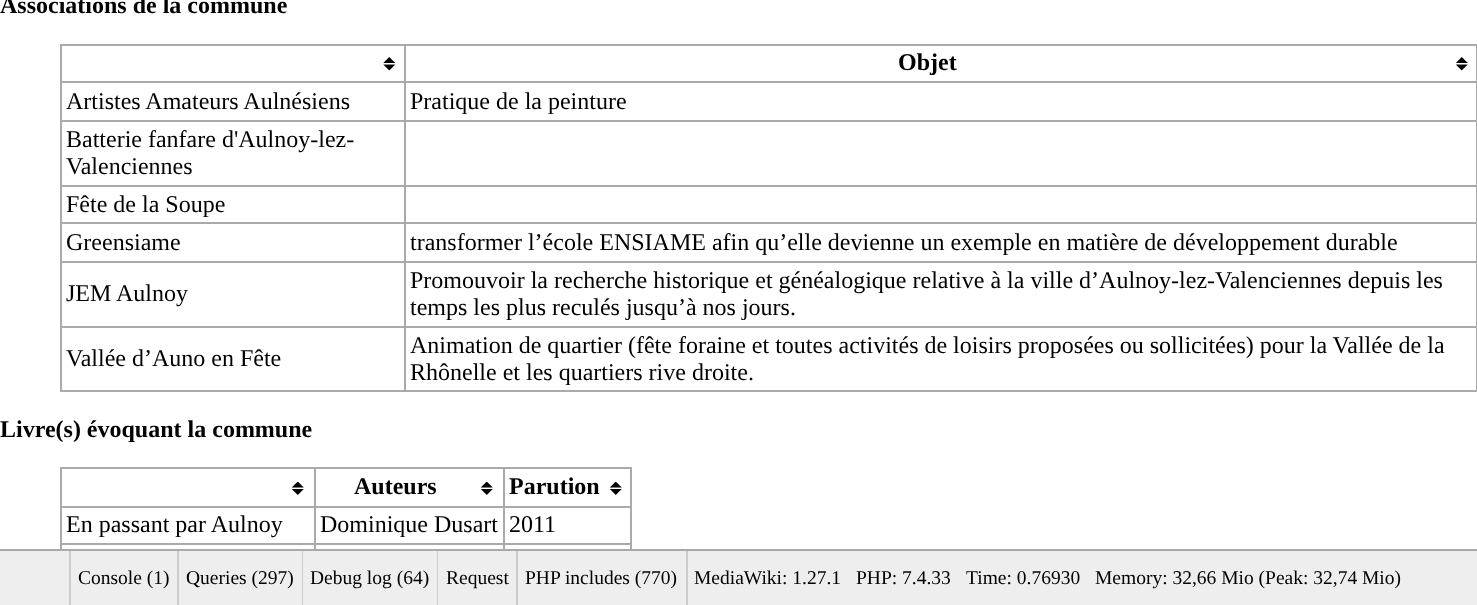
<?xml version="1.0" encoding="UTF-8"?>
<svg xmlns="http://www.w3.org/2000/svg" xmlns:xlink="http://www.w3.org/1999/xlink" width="1477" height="605">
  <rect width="100%" height="100%" fill="#ffffff" />
  <rect x="60" y="44" width="1417" height="2" fill="#aaaaaa" />
  <rect x="1476" y="44" width="1" height="348" fill="#aaaaaa" />
  <rect x="60" y="390" width="1417" height="2" fill="#aaaaaa" />
  <rect x="60" y="44" width="2" height="348" fill="#aaaaaa" />
  <image x="383" y="57" width="13" height="14" xlink:href="image1.png" />
  <image x="1455" y="57" width="13" height="14" xlink:href="image2.png" />
  <rect x="404" y="81" width="1073" height="2" fill="#aaaaaa" />
  <rect x="404" y="120" width="1073" height="2" fill="#aaaaaa" />
  <rect x="404" y="185" width="1073" height="2" fill="#aaaaaa" />
  <rect x="404" y="222" width="1073" height="2" fill="#aaaaaa" />
  <rect x="404" y="261" width="1073" height="2" fill="#aaaaaa" />
  <rect x="404" y="326" width="1073" height="2" fill="#aaaaaa" />
  <rect x="404" y="326" width="2" height="66" fill="#aaaaaa" />
  <rect x="60" y="326" width="345" height="2" fill="#aaaaaa" />
  <rect x="404" y="261" width="2" height="66" fill="#aaaaaa" />
  <rect x="60" y="261" width="345" height="2" fill="#aaaaaa" />
  <rect x="404" y="222" width="2" height="41" fill="#aaaaaa" />
  <rect x="60" y="222" width="345" height="2" fill="#aaaaaa" />
  <rect x="404" y="185" width="2" height="39" fill="#aaaaaa" />
  <rect x="60" y="185" width="345" height="2" fill="#aaaaaa" />
  <rect x="404" y="120" width="2" height="66" fill="#aaaaaa" />
  <rect x="60" y="120" width="345" height="2" fill="#aaaaaa" />
  <rect x="404" y="81" width="2" height="41" fill="#aaaaaa" />
  <rect x="60" y="81" width="345" height="2" fill="#aaaaaa" />
  <rect x="404" y="44" width="2" height="39" fill="#aaaaaa" />
  <rect x="60" y="467" width="572" height="2" fill="#aaaaaa" />
  <rect x="630" y="467" width="2" height="82" fill="#aaaaaa" />
  <rect x="60" y="467" width="2" height="82" fill="#aaaaaa" />
  <image x="291" y="482" width="13" height="13" xlink:href="image3.png" />
  <image x="480" y="482" width="13" height="13" xlink:href="image3.png" />
  <rect x="503" y="506" width="129" height="2" fill="#aaaaaa" />
  <rect x="503" y="543" width="129" height="2" fill="#aaaaaa" />
  <rect x="503" y="543" width="2" height="6" fill="#aaaaaa" />
  <rect x="314" y="543" width="190" height="2" fill="#aaaaaa" />
  <rect x="503" y="506" width="2" height="39" fill="#aaaaaa" />
  <rect x="314" y="506" width="190" height="2" fill="#aaaaaa" />
  <rect x="314" y="543" width="2" height="6" fill="#aaaaaa" />
  <rect x="60" y="543" width="255" height="2" fill="#aaaaaa" />
  <rect x="314" y="506" width="2" height="39" fill="#aaaaaa" />
  <rect x="60" y="506" width="255" height="2" fill="#aaaaaa" />
  <rect x="314" y="467" width="2" height="40" fill="#aaaaaa" />
  <image x="609" y="482" width="13" height="13" xlink:href="image3.png" />
  <rect x="503" y="467" width="2" height="40" fill="#aaaaaa" />
  <rect y="551" width="1477" height="54" fill="#eeeeee" />
  <rect y="549" width="1477" height="2" fill="#aaaaaa" />
  <rect x="177" y="551" width="2" height="54" fill="#cccccc" />
  <rect x="69" y="551" width="2" height="54" fill="#cccccc" />
  <rect x="302" y="551" width="1" height="54" fill="#cccccc" />
  <rect x="437" y="551" width="1" height="54" fill="#cccccc" />
  <rect x="516" y="551" width="2" height="54" fill="#cccccc" />
  <rect x="686" y="551" width="2" height="54" fill="#cccccc" />
  <text x="0" y="13" style="font-family: Liberation Serif; font-size: 24px; font-weight: bold; fill: #000000">Associations de la commune</text>
  <text x="898" y="70" style="font-family: Liberation Serif; font-size: 24px; font-weight: bold; fill: #000000">Objet</text>
  <text x="66" y="109" style="font-family: Liberation Serif; font-size: 24px; fill: #000000">Artistes Amateurs Aulnésiens</text>
  <text x="410" y="109" style="font-family: Liberation Serif; font-size: 24px; fill: #000000">Pratique de la peinture</text>
  <text x="66" y="147" style="font-family: Liberation Serif; font-size: 24px; fill: #000000">Batterie fanfare d'Aulnoy-lez-</text>
  <text x="66" y="174" style="font-family: Liberation Serif; font-size: 24px; fill: #000000">Valenciennes</text>
  <text x="66" y="212" style="font-family: Liberation Serif; font-size: 24px; fill: #000000">Fête de la Soupe</text>
  <text x="66" y="250" style="font-family: Liberation Serif; font-size: 24px; fill: #000000">Greensiame</text>
  <text x="410" y="250" style="font-family: Liberation Serif; font-size: 24px; fill: #000000">transformer l’école ENSIAME afin qu’elle devienne un exemple en matière de développement durable</text>
  <text x="66" y="301" style="font-family: Liberation Serif; font-size: 24px; fill: #000000">JEM Aulnoy</text>
  <text x="410" y="288" style="font-family: Liberation Serif; font-size: 24px; fill: #000000">Promouvoir la recherche historique et généalogique relative à la ville d’Aulnoy-lez-Valenciennes depuis les</text>
  <text x="410" y="315" style="font-family: Liberation Serif; font-size: 24px; fill: #000000">temps les plus reculés jusqu’à nos jours.</text>
  <text x="66" y="366" style="font-family: Liberation Serif; font-size: 24px; fill: #000000">Vallée d’Auno en Fête</text>
  <text x="410" y="353" style="font-family: Liberation Serif; font-size: 24px; fill: #000000">Animation de quartier (fête foraine et toutes activités de loisirs proposées ou sollicitées) pour la Vallée de la</text>
  <text x="410" y="380" style="font-family: Liberation Serif; font-size: 24px; fill: #000000">Rhônelle et les quartiers rive droite.</text>
  <text x="0" y="437" style="font-family: Liberation Serif; font-size: 24px; font-weight: bold; fill: #000000">Livre(s) évoquant la commune</text>
  <text x="354" y="494" style="font-family: Liberation Serif; font-size: 24px; font-weight: bold; fill: #000000">Auteurs</text>
  <text x="509" y="494" style="font-family: Liberation Serif; font-size: 24px; font-weight: bold; fill: #000000">Parution</text>
  <text x="66" y="532" style="font-family: Liberation Serif; font-size: 24px; fill: #000000">En passant par Aulnoy</text>
  <text x="320" y="532" style="font-family: Liberation Serif; font-size: 24px; fill: #000000">Dominique Dusart</text>
  <text x="509" y="532" style="font-family: Liberation Serif; font-size: 24px; fill: #000000">2011</text>
  <text x="78" y="584" style="font-family: Liberation Serif; font-size: 19.5px; fill: #000000">Console (1)</text>
  <text x="186" y="584" style="font-family: Liberation Serif; font-size: 19.5px; fill: #000000">Queries (297)</text>
  <text x="310" y="584" style="font-family: Liberation Serif; font-size: 19.5px; fill: #000000">Debug log (64)</text>
  <text x="446" y="584" style="font-family: Liberation Serif; font-size: 19.5px; fill: #000000">Request</text>
  <text x="525" y="584" style="font-family: Liberation Serif; font-size: 19.5px; fill: #000000">PHP includes (770)</text>
  <text x="694" y="584" style="font-family: Liberation Serif; font-size: 19.5px; fill: #000000">MediaWiki: 1.27.1</text>
  <text x="856" y="584" style="font-family: Liberation Serif; font-size: 19.5px; fill: #000000">PHP: 7.4.33</text>
  <text x="966" y="584" style="font-family: Liberation Serif; font-size: 19.5px; fill: #000000">Time: 0.76930</text>
  <text x="1095" y="584" style="font-family: Liberation Serif; font-size: 19.5px; fill: #000000">Memory: 32,66 Mio (Peak: 32,74 Mio)</text>
</svg>
